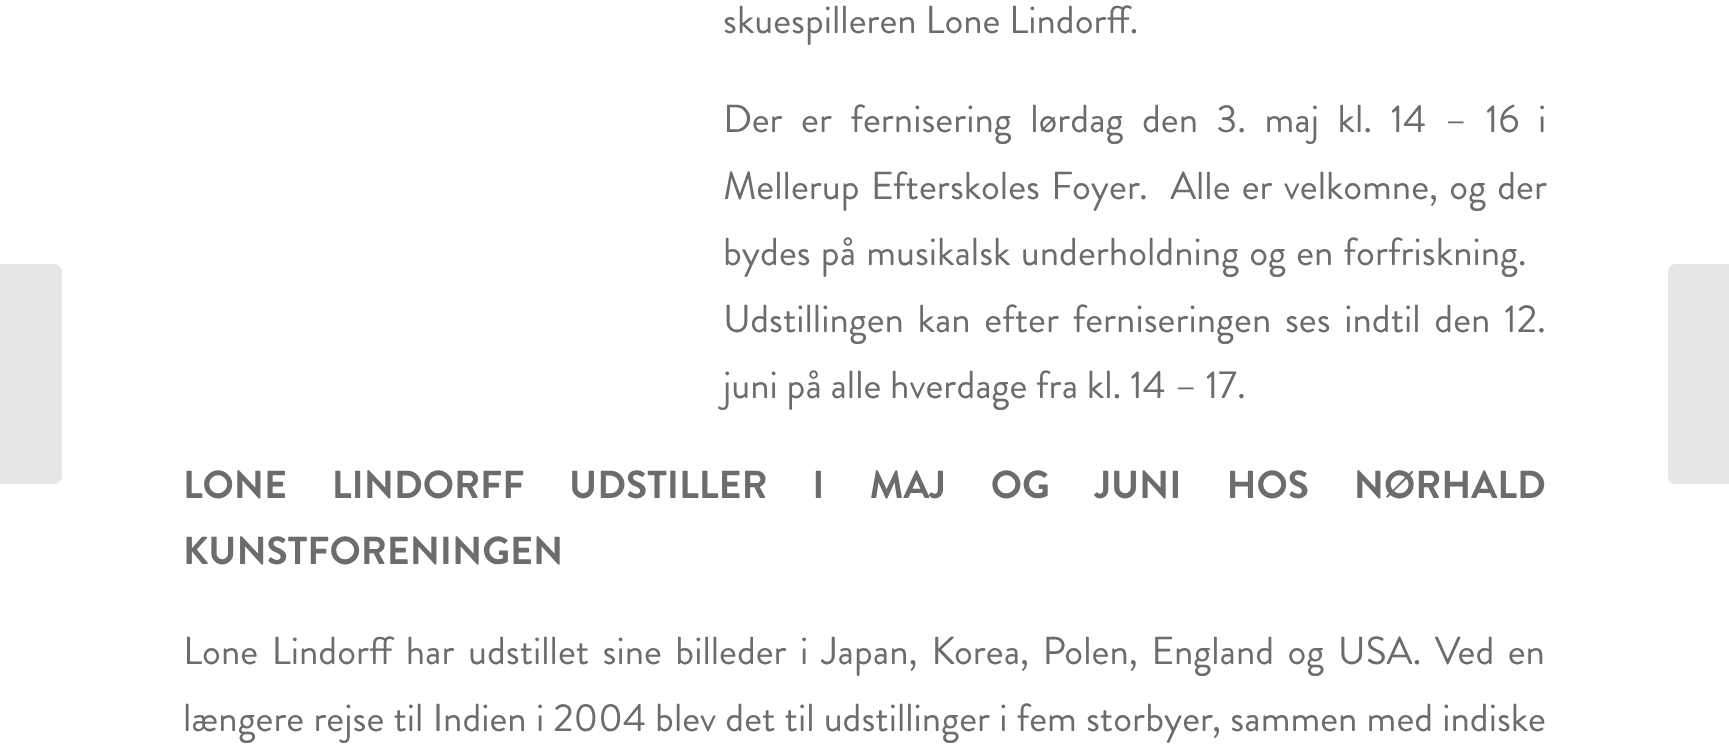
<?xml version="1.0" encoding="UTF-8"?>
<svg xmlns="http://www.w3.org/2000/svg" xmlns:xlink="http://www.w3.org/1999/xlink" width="1729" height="746">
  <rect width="100%" height="100%" fill="#ffffff" />
  <path d="M 0 264 h 54 c 4.5 0 8 3.5 8 8 v 204 c 0 4.5 -3.5 8 -8 8 h -54 z" fill="#e6e6e6" />
  <path d="M 1676 264 h 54 v 220 h -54 c -4.5 0 -8 -3.5 -8 -8 v -204 c 0 -4.5 3.5 -8 8 -8 z" fill="#e6e6e6" />
  <text x="723" y="33" style="font-family: Brandon Grotesque; font-size: 39.1px; fill: #6c6c6f">skuespilleren Lone Lindorff.</text>
  <text x="723" y="132" word-spacing="9.75" style="font-family: Brandon Grotesque; font-size: 39.1px; fill: #6c6c6f">Der er fernisering lørdag den 3. maj kl. 14 – 16 i</text>
  <text x="723" y="199" word-spacing="2.5" style="font-family: Brandon Grotesque; font-size: 39.1px; fill: #6c6c6f" xml:space="preserve">Mellerup Efterskoles Foyer.  Alle er velkomne, og der</text>
  <text x="723" y="265" word-spacing="1.5" style="font-family: Brandon Grotesque; font-size: 39.1px; fill: #6c6c6f">bydes på musikalsk underholdning og en forfriskning.</text>
  <text x="723" y="332" word-spacing="5" style="font-family: Brandon Grotesque; font-size: 39.1px; fill: #6c6c6f">Udstillingen kan efter ferniseringen ses indtil den 12.</text>
  <text x="723" y="398" style="font-family: Brandon Grotesque; font-size: 39.1px; fill: #6c6c6f">juni på alle hverdage fra kl. 14 – 17.</text>
  <text x="183" y="498" word-spacing="36.25" style="font-family: Brandon Grotesque; font-size: 39.1px; font-weight: bold; fill: #6c6c6f">LONE LINDORFF UDSTILLER I MAJ OG JUNI HOS NØRHALD</text>
  <text x="183" y="564" style="font-family: Brandon Grotesque; font-size: 39.1px; font-weight: bold; fill: #6c6c6f">KUNSTFORENINGEN</text>
  <text x="183" y="664" word-spacing="4.75" style="font-family: Brandon Grotesque; font-size: 39.1px; fill: #6c6c6f">Lone Lindorff har udstillet sine billeder i Japan, Korea, Polen, England og USA. Ved en</text>
  <text x="183" y="731" word-spacing="0.5" style="font-family: Brandon Grotesque; font-size: 39.1px; fill: #6c6c6f">længere rejse til Indien i 2004 blev det til udstillinger i fem storbyer, sammen med indiske</text>
</svg>
